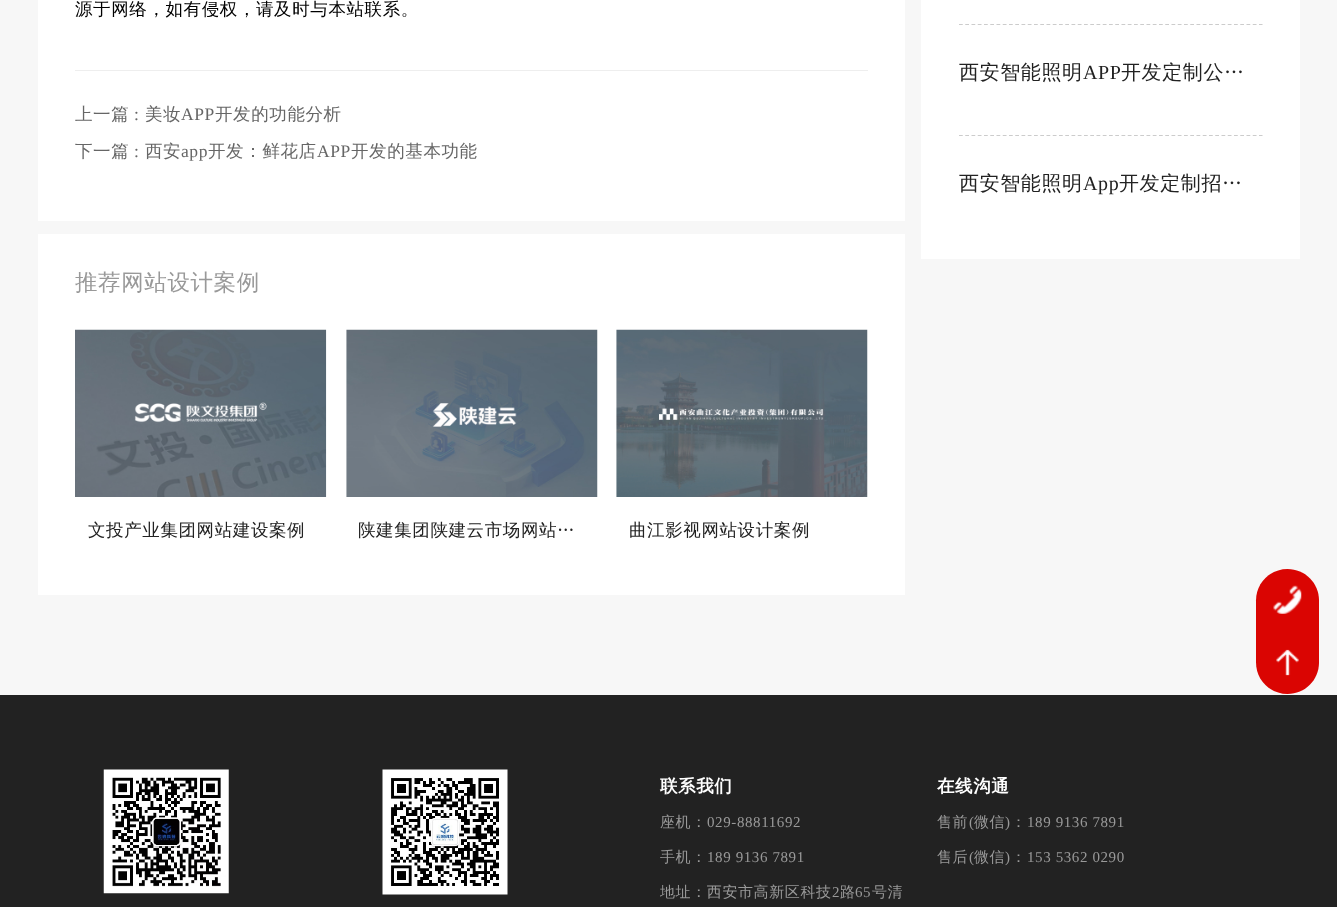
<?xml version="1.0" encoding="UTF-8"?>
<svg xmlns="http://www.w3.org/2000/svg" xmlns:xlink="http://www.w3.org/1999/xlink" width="1337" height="907">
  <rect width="100%" height="100%" fill="#f7f7f7" />
  <rect x="38" width="867" height="221" fill="#ffffff" />
  <rect x="75" y="70" width="793" height="1" fill="#eeeeee" />
  <rect x="38" y="234" width="867" height="361" fill="#ffffff" />
  <image x="75" y="329" width="252" height="168" xlink:href="image1.png" />
  <image x="346" y="329" width="252" height="168" xlink:href="image2.png" />
  <image x="616" y="329" width="252" height="168" xlink:href="image3.png" />
  <rect x="921" width="379" height="259" fill="#ffffff" />
  <path d="M 959 24.5 h 303.5" fill="none" stroke="#cccccc" stroke-width="1.2" stroke-dasharray="3.75 2.5" />
  <path d="M 959 135.5 h 303.5" fill="none" stroke="#cccccc" stroke-width="1.2" stroke-dasharray="3.75 2.5" />
  <path d="M 1287.5 569 c 17.5 0 31.5 14 31.5 31.5 v 30.5 h -63 v -30.5 c 0 -17.5 14 -31.5 31.5 -31.5 z" fill="#da0502" />
  <image x="1273" y="585" width="29" height="29" xlink:href="image4.png" />
  <path d="M 1256 631 h 63 v 31.5 c 0 17.5 -14 31.5 -31.5 31.5 c -17.5 0 -31.5 -14 -31.5 -31.5 z" fill="#da0502" />
  <image x="1276" y="649" width="23" height="27" xlink:href="image5.png" />
  <rect y="695" width="1337" height="212" fill="#222222" />
  <image x="103" y="769" width="126" height="125" xlink:href="image6.png" />
  <image x="382" y="769" width="126" height="126" xlink:href="image7.png" />
  <text x="75" y="15" style="font-family: WenQuanYi Zen Hei; font-size: 17.5px; font-weight: 500; letter-spacing: 0.6px; fill: #000000">源于网络，如有侵权，请及时与本站联系。</text>
  <text x="75" y="120" style="font-family: WenQuanYi Zen Hei; font-size: 17.5px; font-weight: 500; letter-spacing: 0.6px; fill: #666666">上一篇</text>
  <text x="134" y="120" style="font-family: Liberation Serif; font-size: 17.5px; letter-spacing: 0.6px; fill: #666666">:</text>
  <text x="145" y="120" style="font-family: WenQuanYi Zen Hei; font-size: 17.5px; font-weight: 500; letter-spacing: 0.6px; fill: #666666">美妆</text>
  <text x="181" y="120" style="font-family: Liberation Serif; font-size: 17.5px; letter-spacing: 0.6px; fill: #666666">APP</text>
  <text x="215" y="120" style="font-family: WenQuanYi Zen Hei; font-size: 17.5px; font-weight: 500; letter-spacing: 0.6px; fill: #666666">开发的功能分析</text>
  <text x="75" y="157" style="font-family: WenQuanYi Zen Hei; font-size: 17.5px; font-weight: 500; letter-spacing: 0.6px; fill: #666666">下一篇</text>
  <text x="134" y="157" style="font-family: Liberation Serif; font-size: 17.5px; letter-spacing: 0.6px; fill: #666666">:</text>
  <text x="145" y="157" style="font-family: WenQuanYi Zen Hei; font-size: 17.5px; font-weight: 500; letter-spacing: 0.6px; fill: #666666">西安</text>
  <text x="181" y="157" style="font-family: Liberation Serif; font-size: 17.5px; letter-spacing: 0.6px; fill: #666666">app</text>
  <text x="208" y="157" style="font-family: WenQuanYi Zen Hei; font-size: 17.5px; font-weight: 500; letter-spacing: 0.6px; fill: #666666">开发：鲜花店</text>
  <text x="317" y="157" style="font-family: Liberation Serif; font-size: 17.5px; letter-spacing: 0.6px; fill: #666666">APP</text>
  <text x="351" y="157" style="font-family: WenQuanYi Zen Hei; font-size: 17.5px; font-weight: 500; letter-spacing: 0.6px; fill: #666666">开发的基本功能</text>
  <text x="75" y="290" style="font-family: WenQuanYi Zen Hei; font-size: 22.5px; font-weight: 500; letter-spacing: 0.6px; fill: #999999">推荐网站设计案例</text>
  <text x="88" y="536" style="font-family: WenQuanYi Zen Hei; font-size: 17.5px; font-weight: 500; letter-spacing: 0.6px; fill: #222222">文投产业集团网站建设案例</text>
  <text x="358" y="536" style="font-family: WenQuanYi Zen Hei; font-size: 17.5px; font-weight: 500; letter-spacing: 0.6px; fill: #222222">陕建集团陕建云市场网站…</text>
  <text x="629" y="536" style="font-family: WenQuanYi Zen Hei; font-size: 17.5px; font-weight: 500; letter-spacing: 0.6px; fill: #222222">曲江影视网站设计案例</text>
  <text x="959" y="79" style="font-family: WenQuanYi Zen Hei; font-size: 20px; font-weight: 500; letter-spacing: 0.6px; fill: #222222">西安智能照明</text>
  <text x="1083" y="79" style="font-family: Liberation Serif; font-size: 20px; letter-spacing: 0.6px; fill: #222222">APP</text>
  <text x="1121" y="79" style="font-family: WenQuanYi Zen Hei; font-size: 20px; font-weight: 500; letter-spacing: 0.6px; fill: #222222">开发定制公…</text>
  <text x="959" y="190" style="font-family: WenQuanYi Zen Hei; font-size: 20px; font-weight: 500; letter-spacing: 0.6px; fill: #222222">西安智能照明</text>
  <text x="1083" y="190" style="font-family: Liberation Serif; font-size: 20px; letter-spacing: 0.6px; fill: #222222">App</text>
  <text x="1119" y="190" style="font-family: WenQuanYi Zen Hei; font-size: 20px; font-weight: 500; letter-spacing: 0.6px; fill: #222222">开发定制招…</text>
  <text x="660" y="792" style="font-family: WenQuanYi Zen Hei; font-size: 17.5px; font-weight: bold; letter-spacing: 0.6px; fill: #ffffff">联系我们</text>
  <text x="660" y="827" style="font-family: WenQuanYi Zen Hei; font-size: 15px; font-weight: 500; letter-spacing: 0.6px; fill: #999999">座机：</text>
  <text x="707" y="827" style="font-family: Liberation Serif; font-size: 15px; letter-spacing: 0.6px; fill: #999999">029-88811692</text>
  <text x="660" y="862" style="font-family: WenQuanYi Zen Hei; font-size: 15px; font-weight: 500; letter-spacing: 0.6px; fill: #999999">手机：</text>
  <text x="707" y="862" style="font-family: Liberation Serif; font-size: 15px; letter-spacing: 0.6px; fill: #999999">189 9136 7891</text>
  <text x="660" y="897" style="font-family: WenQuanYi Zen Hei; font-size: 15px; font-weight: 500; letter-spacing: 0.6px; fill: #999999">地址：西安市高新区科技</text>
  <text x="832" y="897" style="font-family: Liberation Serif; font-size: 15px; letter-spacing: 0.6px; fill: #999999">2</text>
  <text x="840" y="897" style="font-family: WenQuanYi Zen Hei; font-size: 15px; font-weight: 500; letter-spacing: 0.6px; fill: #999999">路</text>
  <text x="855" y="897" style="font-family: Liberation Serif; font-size: 15px; letter-spacing: 0.6px; fill: #999999">65</text>
  <text x="872" y="897" style="font-family: WenQuanYi Zen Hei; font-size: 15px; font-weight: 500; letter-spacing: 0.6px; fill: #999999">号清</text>
  <text x="937" y="792" style="font-family: WenQuanYi Zen Hei; font-size: 17.5px; font-weight: bold; letter-spacing: 0.6px; fill: #ffffff">在线沟通</text>
  <text x="937" y="827" style="font-family: WenQuanYi Zen Hei; font-size: 15px; font-weight: 500; letter-spacing: 0.6px; fill: #999999">售前</text>
  <text x="969" y="827" style="font-family: Liberation Serif; font-size: 15px; letter-spacing: 0.6px; fill: #999999">(</text>
  <text x="974" y="827" style="font-family: WenQuanYi Zen Hei; font-size: 15px; font-weight: 500; letter-spacing: 0.6px; fill: #999999">微信</text>
  <text x="1005" y="827" style="font-family: Liberation Serif; font-size: 15px; letter-spacing: 0.6px; fill: #999999">)</text>
  <text x="1011" y="827" style="font-family: WenQuanYi Zen Hei; font-size: 15px; font-weight: 500; letter-spacing: 0.6px; fill: #999999">：</text>
  <text x="1027" y="827" style="font-family: Liberation Serif; font-size: 15px; letter-spacing: 0.6px; fill: #999999">189 9136 7891</text>
  <text x="937" y="862" style="font-family: WenQuanYi Zen Hei; font-size: 15px; font-weight: 500; letter-spacing: 0.6px; fill: #999999">售后</text>
  <text x="969" y="862" style="font-family: Liberation Serif; font-size: 15px; letter-spacing: 0.6px; fill: #999999">(</text>
  <text x="974" y="862" style="font-family: WenQuanYi Zen Hei; font-size: 15px; font-weight: 500; letter-spacing: 0.6px; fill: #999999">微信</text>
  <text x="1005" y="862" style="font-family: Liberation Serif; font-size: 15px; letter-spacing: 0.6px; fill: #999999">)</text>
  <text x="1011" y="862" style="font-family: WenQuanYi Zen Hei; font-size: 15px; font-weight: 500; letter-spacing: 0.6px; fill: #999999">：</text>
  <text x="1027" y="862" style="font-family: Liberation Serif; font-size: 15px; letter-spacing: 0.6px; fill: #999999">153 5362 0290</text>
</svg>
